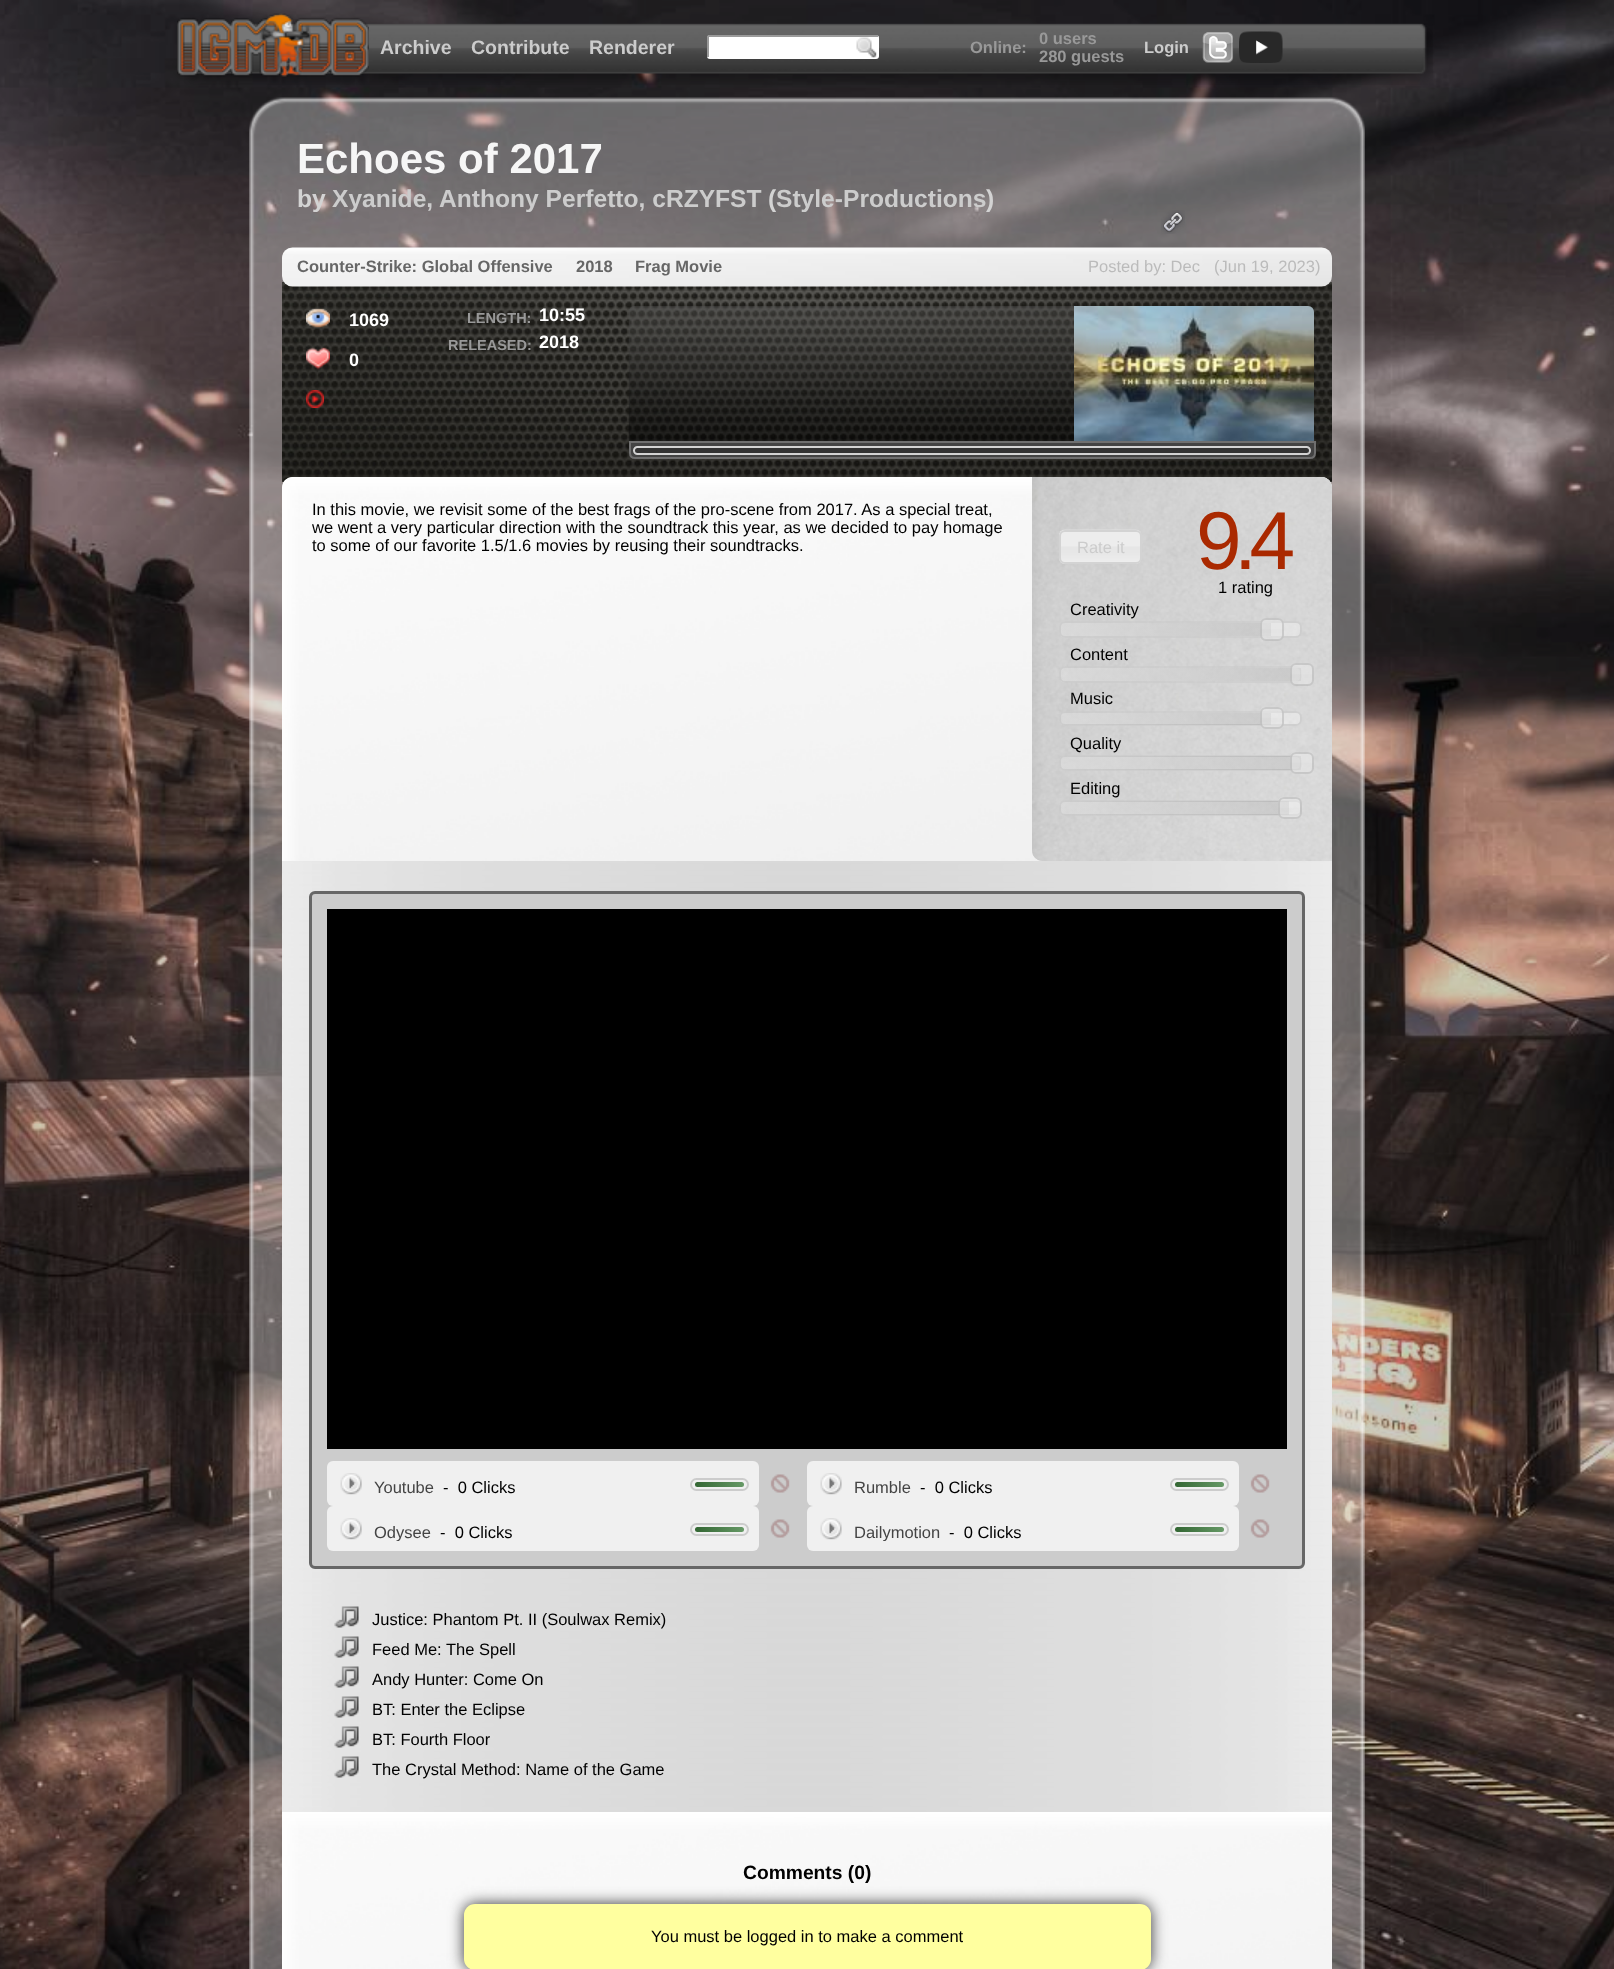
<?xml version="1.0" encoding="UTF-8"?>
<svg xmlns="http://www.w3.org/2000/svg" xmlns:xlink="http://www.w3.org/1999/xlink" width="1614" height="1969">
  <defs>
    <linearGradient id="g1" gradientUnits="userSpaceOnUse" x1="1061" y1="629" x2="1271" y2="629"><stop offset="0" stop-color="#cccccc" stop-opacity="0.35" /><stop offset="1" stop-color="#999999" stop-opacity="0.35" /></linearGradient>
    <linearGradient id="g2" gradientUnits="userSpaceOnUse" x1="1061" y1="674" x2="1301" y2="674"><stop offset="0" stop-color="#cccccc" stop-opacity="0.35" /><stop offset="1" stop-color="#999999" stop-opacity="0.35" /></linearGradient>
    <linearGradient id="g3" gradientUnits="userSpaceOnUse" x1="1061" y1="719" x2="1271" y2="719"><stop offset="0" stop-color="#cccccc" stop-opacity="0.35" /><stop offset="1" stop-color="#999999" stop-opacity="0.35" /></linearGradient>
    <linearGradient id="g4" gradientUnits="userSpaceOnUse" x1="1061" y1="763" x2="1301" y2="763"><stop offset="0" stop-color="#cccccc" stop-opacity="0.35" /><stop offset="1" stop-color="#999999" stop-opacity="0.35" /></linearGradient>
    <linearGradient id="g5" gradientUnits="userSpaceOnUse" x1="1061" y1="808" x2="1289" y2="808"><stop offset="0" stop-color="#cccccc" stop-opacity="0.35" /><stop offset="1" stop-color="#999999" stop-opacity="0.35" /></linearGradient>
    <linearGradient id="g6" gradientUnits="userSpaceOnUse" x1="695" y1="1484" x2="744" y2="1484"><stop offset="0" stop-color="#336633" /><stop offset="1" stop-color="#669966" /></linearGradient>
    <linearGradient id="g7" gradientUnits="userSpaceOnUse" x1="1175" y1="1484" x2="1224" y2="1484"><stop offset="0" stop-color="#336633" /><stop offset="1" stop-color="#669966" /></linearGradient>
    <linearGradient id="g8" gradientUnits="userSpaceOnUse" x1="695" y1="1529" x2="744" y2="1529"><stop offset="0" stop-color="#336633" /><stop offset="1" stop-color="#669966" /></linearGradient>
    <linearGradient id="g9" gradientUnits="userSpaceOnUse" x1="1175" y1="1529" x2="1224" y2="1529"><stop offset="0" stop-color="#336633" /><stop offset="1" stop-color="#669966" /></linearGradient>
    <clipPath id="clip1"><rect x="374" y="1523" width="57" height="18" /></clipPath>
    <clipPath id="clip2"><rect x="854" y="1523" width="87" height="18" /></clipPath>
  </defs>
  <rect width="100%" height="100%" fill="#ffffff" />
  <image x="0" y="0" width="1614" height="1969" xlink:href="image1.png" />
  <image x="184" y="23" width="1249" height="62" xlink:href="image2.png" />
  <image x="177" y="13" width="192" height="64" xlink:href="image3.png" />
  <rect x="707" y="35" width="172" height="24" rx="3" fill="#ffffff" />
  <image x="856" y="37" width="21" height="21" xlink:href="image4.png" />
  <rect x="708" y="35" width="170" height="2" fill="#9a9a9a" />
  <rect x="707" y="36" width="2" height="21" fill="#9a9a9a" />
  <image x="1202" y="32" width="32" height="31" xlink:href="image5.png" />
  <image x="1239" y="31" width="44" height="32" xlink:href="image6.png" />
  <image x="249" y="97" width="1116" height="53" xlink:href="image7.png" />
  <image x="249" y="150" width="1116" height="1819" xlink:href="image8.png" />
  <image x="1161" y="210" width="24" height="24" xlink:href="image9.png" />
  <image x="283" y="280" width="1048" height="204" xlink:href="image11.png" />
  <rect x="282" y="481" width="1050" height="1" fill="#474642" />
  <image x="282" y="282" width="1050" height="200" xlink:href="image12.png" />
  <image x="282" y="247" width="1050" height="40" xlink:href="image10.png" />
  <image x="306" y="308" width="24" height="20" xlink:href="image13.png" />
  <image x="306" y="347" width="24" height="23" xlink:href="image14.png" />
  <image x="306" y="390" width="18" height="18" xlink:href="image15.png" />
  <image x="628" y="306" width="686" height="135" xlink:href="image16.png" />
  <image x="1074" y="306" width="240" height="135" xlink:href="image17.png" />
  <path d="M 630 442 h 685 v 11 c 0 3 -2 5 -5 5 h -675 c -3 0 -5 -2 -5 -5 z" fill="#434343" stroke="#6f6f6f" stroke-width="2" />
  <rect x="634" y="447" width="676" height="7" rx="3.5" fill="#333333" stroke="#d3d3d3" stroke-width="2" />
  <path d="M 293 477 h 1028 c 6 0 11 5 11 11 v 373 h -1050 v -373 c 0 -6 5 -11 11 -11 z" fill="#eeeeee" />
  <image x="282" y="477" width="1050" height="384" xlink:href="image18.png" />
  <path d="M 1032 477 h 289 c 6 0 11 5 11 11 v 373 h -289 c -6 0 -11 -5 -11 -11 z" fill="#d6d6d6" />
  <image x="1032" y="477" width="300" height="384" xlink:href="image19.png" />
  <image x="1059" y="529" width="83" height="35" xlink:href="image20.png" />
  <rect x="1060" y="531" width="81" height="32" rx="5" fill="none" stroke="#d3d3d3" stroke-width="2" />
  <rect x="1059" y="621" width="243" height="17" rx="6" fill="#ffffff" fill-opacity="0.35" />
  <rect x="1060" y="622" width="241" height="15" rx="5" fill="none" stroke="#aaaaaa" stroke-opacity="0.35" stroke-width="2" />
  <rect x="1061" y="623" width="210" height="13" fill="url(#g1)" />
  <rect x="1260" y="618" width="24" height="23" rx="6" fill="#e6e6e6" fill-opacity="0.35" />
  <image x="1260" y="618" width="24" height="22" xlink:href="image21.png" />
  <rect x="1261" y="619" width="22" height="21" rx="5" fill="none" stroke="#999999" stroke-opacity="0.35" stroke-width="2" />
  <rect x="1059" y="666" width="243" height="17" rx="6" fill="#ffffff" fill-opacity="0.35" />
  <rect x="1060" y="667" width="241" height="15" rx="5" fill="none" stroke="#aaaaaa" stroke-opacity="0.35" stroke-width="2" />
  <rect x="1061" y="668" width="240" height="13" fill="url(#g2)" />
  <rect x="1290" y="663" width="24" height="23" rx="6" fill="#e6e6e6" fill-opacity="0.35" />
  <image x="1290" y="663" width="24" height="22" xlink:href="image22.png" />
  <rect x="1291" y="664" width="22" height="21" rx="5" fill="none" stroke="#999999" stroke-opacity="0.35" stroke-width="2" />
  <rect x="1059" y="711" width="243" height="15" rx="6" fill="#ffffff" fill-opacity="0.35" />
  <rect x="1060" y="712" width="241" height="13" rx="5" fill="none" stroke="#aaaaaa" stroke-opacity="0.35" stroke-width="2" />
  <rect x="1061" y="713" width="210" height="12" fill="url(#g3)" />
  <rect x="1260" y="707" width="24" height="22" rx="6" fill="#e6e6e6" fill-opacity="0.35" />
  <image x="1260" y="707" width="24" height="22" xlink:href="image23.png" />
  <rect x="1261" y="708" width="22" height="20" rx="5" fill="none" stroke="#999999" stroke-opacity="0.35" stroke-width="2" />
  <rect x="1059" y="755" width="243" height="16" rx="6" fill="#ffffff" fill-opacity="0.35" />
  <rect x="1060" y="756" width="241" height="14" rx="5" fill="none" stroke="#aaaaaa" stroke-opacity="0.35" stroke-width="2" />
  <rect x="1061" y="756" width="240" height="14" fill="url(#g4)" />
  <rect x="1290" y="752" width="24" height="22" rx="6" fill="#e6e6e6" fill-opacity="0.35" />
  <image x="1290" y="752" width="24" height="22" xlink:href="image24.png" />
  <rect x="1291" y="753" width="22" height="20" rx="5" fill="none" stroke="#999999" stroke-opacity="0.35" stroke-width="2" />
  <rect x="1059" y="800" width="243" height="16" rx="6" fill="#ffffff" fill-opacity="0.35" />
  <rect x="1060" y="801" width="241" height="14" rx="5" fill="none" stroke="#aaaaaa" stroke-opacity="0.35" stroke-width="2" />
  <rect x="1061" y="801" width="228" height="14" fill="url(#g5)" />
  <rect x="1278" y="797" width="24" height="22" rx="6" fill="#e6e6e6" fill-opacity="0.35" />
  <image x="1278" y="797" width="24" height="22" xlink:href="image25.png" />
  <rect x="1279" y="798" width="22" height="20" rx="5" fill="none" stroke="#999999" stroke-opacity="0.35" stroke-width="2" />
  <image x="282" y="861" width="1050" height="951" xlink:href="image26.png" />
  <rect x="310.5" y="892.5" width="993" height="675" rx="4.5" fill="#cccccc" stroke="#666666" stroke-width="3" />
  <rect x="327" y="909" width="960" height="540" fill="#000000" />
  <rect x="327" y="1461" width="432" height="45" rx="6" fill="#f0f0f0" />
  <image x="340" y="1473" width="22" height="22" xlink:href="image27.png" />
  <rect x="691" y="1479" width="57" height="11" rx="5.5" fill="none" stroke="#cccccc" stroke-width="2" />
  <rect x="695" y="1482" width="49" height="5" rx="2.5" fill="url(#g6)" />
  <image x="770" y="1474" width="20" height="19" xlink:href="image28.png" />
  <rect x="807" y="1461" width="432" height="45" rx="6" fill="#f0f0f0" />
  <image x="820" y="1473" width="22" height="22" xlink:href="image29.png" />
  <rect x="1171" y="1479" width="57" height="11" rx="5.5" fill="none" stroke="#cccccc" stroke-width="2" />
  <rect x="1175" y="1482" width="49" height="5" rx="2.5" fill="url(#g7)" />
  <image x="1250" y="1474" width="20" height="19" xlink:href="image28.png" />
  <rect x="327" y="1506" width="432" height="45" rx="6" fill="#f0f0f0" />
  <image x="340" y="1518" width="22" height="22" xlink:href="image27.png" />
  <rect x="691" y="1524" width="57" height="11" rx="5.5" fill="none" stroke="#cccccc" stroke-width="2" />
  <rect x="695" y="1527" width="49" height="5" rx="2.5" fill="url(#g8)" />
  <image x="770" y="1519" width="20" height="19" xlink:href="image28.png" />
  <rect x="807" y="1506" width="432" height="45" rx="6" fill="#f0f0f0" />
  <image x="820" y="1518" width="22" height="22" xlink:href="image29.png" />
  <rect x="1171" y="1524" width="57" height="11" rx="5.5" fill="none" stroke="#cccccc" stroke-width="2" />
  <rect x="1175" y="1527" width="49" height="5" rx="2.5" fill="url(#g9)" />
  <image x="1250" y="1519" width="20" height="19" xlink:href="image28.png" />
  <image x="334" y="1606" width="25" height="22" xlink:href="image30.png" />
  <image x="334" y="1636" width="25" height="22" xlink:href="image31.png" />
  <image x="334" y="1666" width="25" height="22" xlink:href="image30.png" />
  <image x="334" y="1696" width="25" height="22" xlink:href="image31.png" />
  <image x="334" y="1726" width="25" height="22" xlink:href="image30.png" />
  <image x="334" y="1756" width="25" height="22" xlink:href="image31.png" />
  <image x="282" y="1812" width="1050" height="157" xlink:href="image32.png" />
  <rect x="464" y="1904" width="687" height="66" rx="11" fill="#333333" filter="blur(7.5px)" />
  <rect x="464" y="1904" width="687" height="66" rx="11" fill="#ffff9f" />
  <text x="380" y="54" style="font-family: Liberation Sans; font-size: 19.5px; font-weight: bold; fill: #cccccc">Archive</text>
  <text x="471" y="54" style="font-family: Liberation Sans; font-size: 19.5px; font-weight: bold; fill: #cccccc">Contribute</text>
  <text x="589" y="54" style="font-family: Liberation Sans; font-size: 19.5px; font-weight: bold; fill: #cccccc">Renderer</text>
  <text x="970" y="53" style="font-family: Liberation Sans; font-size: 16.5px; font-weight: bold; fill: #999999">Online:</text>
  <text x="1039" y="44" style="font-family: Liberation Sans; font-size: 16.5px; font-weight: bold; fill: #999999">0 users</text>
  <text x="1039" y="62" style="font-family: Liberation Sans; font-size: 16.5px; font-weight: bold; fill: #999999">280 guests</text>
  <text x="1144" y="53" style="font-family: Liberation Sans; font-size: 16.5px; font-weight: bold; fill: #cccccc">Login</text>
  <text x="297" y="173" style="font-family: Liberation Sans; font-size: 42px; font-weight: bold; fill: #f6f6f6">Echoes of 2017</text>
  <text x="297" y="207" style="font-family: Liberation Sans; font-size: 24.6px; font-weight: bold; fill: #d3d3d3">by</text>
  <text x="332" y="207" style="font-family: Liberation Sans; font-size: 24.6px; font-weight: bold; fill: #cccccc">Xyanide, Anthony Perfetto, cRZYFST</text>
  <text x="768" y="207" style="font-family: Liberation Sans; font-size: 24.6px; font-weight: bold; fill: #d3d3d3">(</text>
  <text x="776" y="207" style="font-family: Liberation Sans; font-size: 24.6px; font-weight: bold; fill: #cccccc">Style-Productions</text>
  <text x="986" y="207" style="font-family: Liberation Sans; font-size: 24.6px; font-weight: bold; fill: #d3d3d3">)</text>
  <text x="297" y="272" style="font-family: Liberation Sans; font-size: 16.5px; font-weight: bold; fill: #666666">Counter-Strike: Global Offensive</text>
  <text x="576" y="272" style="font-family: Liberation Sans; font-size: 16.5px; font-weight: bold; fill: #666666">2018</text>
  <text x="635" y="272" style="font-family: Liberation Sans; font-size: 16.5px; font-weight: bold; fill: #666666">Frag Movie</text>
  <text x="1088" y="272" style="font-family: Liberation Sans; font-size: 16.5px; fill: #bbbbbb">Posted by: Dec</text>
  <text x="1214" y="272" style="font-family: Liberation Sans; font-size: 16.5px; fill: #bbbbbb">(Jun 19, 2023)</text>
  <text x="349" y="326" style="font-family: Liberation Sans; font-size: 18px; font-weight: bold; fill: #ffffff">1069</text>
  <text x="349" y="366" style="font-family: Liberation Sans; font-size: 18px; font-weight: bold; fill: #ffffff">0</text>
  <text x="467" y="323" style="font-family: Liberation Sans; font-size: 14.5px; font-weight: bold; fill: #999999">LENGTH:</text>
  <text x="539" y="321" style="font-family: Liberation Sans; font-size: 18px; font-weight: bold; fill: #ffffff">10:55</text>
  <text x="448" y="350" style="font-family: Liberation Sans; font-size: 14.5px; font-weight: bold; fill: #999999">RELEASED:</text>
  <text x="539" y="348" style="font-family: Liberation Sans; font-size: 18px; font-weight: bold; fill: #ffffff">2018</text>
  <text x="312" y="515" style="font-family: Liberation Sans; font-size: 16.5px; fill: #000000">In this movie, we revisit some of the best frags of the pro-scene from 2017. As a special treat,</text>
  <text x="312" y="533" style="font-family: Liberation Sans; font-size: 16.5px; fill: #000000">we went a very particular direction with the soundtrack this year, as we decided to pay homage</text>
  <text x="312" y="551" style="font-family: Liberation Sans; font-size: 16.5px; fill: #000000">to some of our favorite 1.5/1.6 movies by reusing their soundtracks.</text>
  <text x="1077" y="553" style="font-family: Liberation Sans; font-size: 16.5px; fill: #cccccc">Rate it</text>
  <text x="1196" y="569" style="font-family: Liberation Sans; font-size: 82px; letter-spacing: -7.5px; fill: #aa2900">9.4</text>
  <text x="1218" y="593" style="font-family: Liberation Sans; font-size: 16.5px; fill: #000000">1 rating</text>
  <text x="1070" y="615" style="font-family: Liberation Sans; font-size: 16.5px; fill: #000000">Creativity</text>
  <text x="1070" y="660" style="font-family: Liberation Sans; font-size: 16.5px; fill: #000000">Content</text>
  <text x="1070" y="704" style="font-family: Liberation Sans; font-size: 16.5px; fill: #000000">Music</text>
  <text x="1070" y="749" style="font-family: Liberation Sans; font-size: 16.5px; fill: #000000">Quality</text>
  <text x="1070" y="794" style="font-family: Liberation Sans; font-size: 16.5px; fill: #000000">Editing</text>
  <text x="374" y="1493" style="font-family: Liberation Sans; font-size: 16.5px; fill: #444444">Youtube</text>
  <text x="443" y="1493" style="font-family: Liberation Sans; font-size: 16.5px; fill: #000000" xml:space="preserve">-  0 Clicks</text>
  <text x="854" y="1493" style="font-family: Liberation Sans; font-size: 16.5px; fill: #444444">Rumble</text>
  <text x="920" y="1493" style="font-family: Liberation Sans; font-size: 16.5px; fill: #000000" xml:space="preserve">-  0 Clicks</text>
  <g clip-path="url(#clip1)">
    <text x="374" y="1538" style="font-family: Liberation Sans; font-size: 16.5px; fill: #444444">Odysee</text>
  </g>
  <text x="440" y="1538" style="font-family: Liberation Sans; font-size: 16.5px; fill: #000000" xml:space="preserve">-  0 Clicks</text>
  <g clip-path="url(#clip2)">
    <text x="854" y="1538" style="font-family: Liberation Sans; font-size: 16.5px; fill: #444444">Dailymotion</text>
  </g>
  <text x="949" y="1538" style="font-family: Liberation Sans; font-size: 16.5px; fill: #000000" xml:space="preserve">-  0 Clicks</text>
  <text x="372" y="1625" style="font-family: Liberation Sans; font-size: 16.5px; fill: #000000">Justice: Phantom Pt. II (Soulwax Remix)</text>
  <text x="372" y="1655" style="font-family: Liberation Sans; font-size: 16.5px; fill: #000000">Feed Me: The Spell</text>
  <text x="372" y="1685" style="font-family: Liberation Sans; font-size: 16.5px; fill: #000000">Andy Hunter: Come On</text>
  <text x="372" y="1715" style="font-family: Liberation Sans; font-size: 16.5px; fill: #000000">BT: Enter the Eclipse</text>
  <text x="372" y="1745" style="font-family: Liberation Sans; font-size: 16.5px; fill: #000000">BT: Fourth Floor</text>
  <text x="372" y="1775" style="font-family: Liberation Sans; font-size: 16.5px; fill: #000000">The Crystal Method: Name of the Game</text>
  <text x="743" y="1879" style="font-family: Liberation Sans; font-size: 19.25px; font-weight: bold; fill: #000000">Comments (0)</text>
  <text x="651" y="1942" style="font-family: Liberation Sans; font-size: 16.5px; fill: #000000">You must be logged in to make a comment</text>
</svg>
